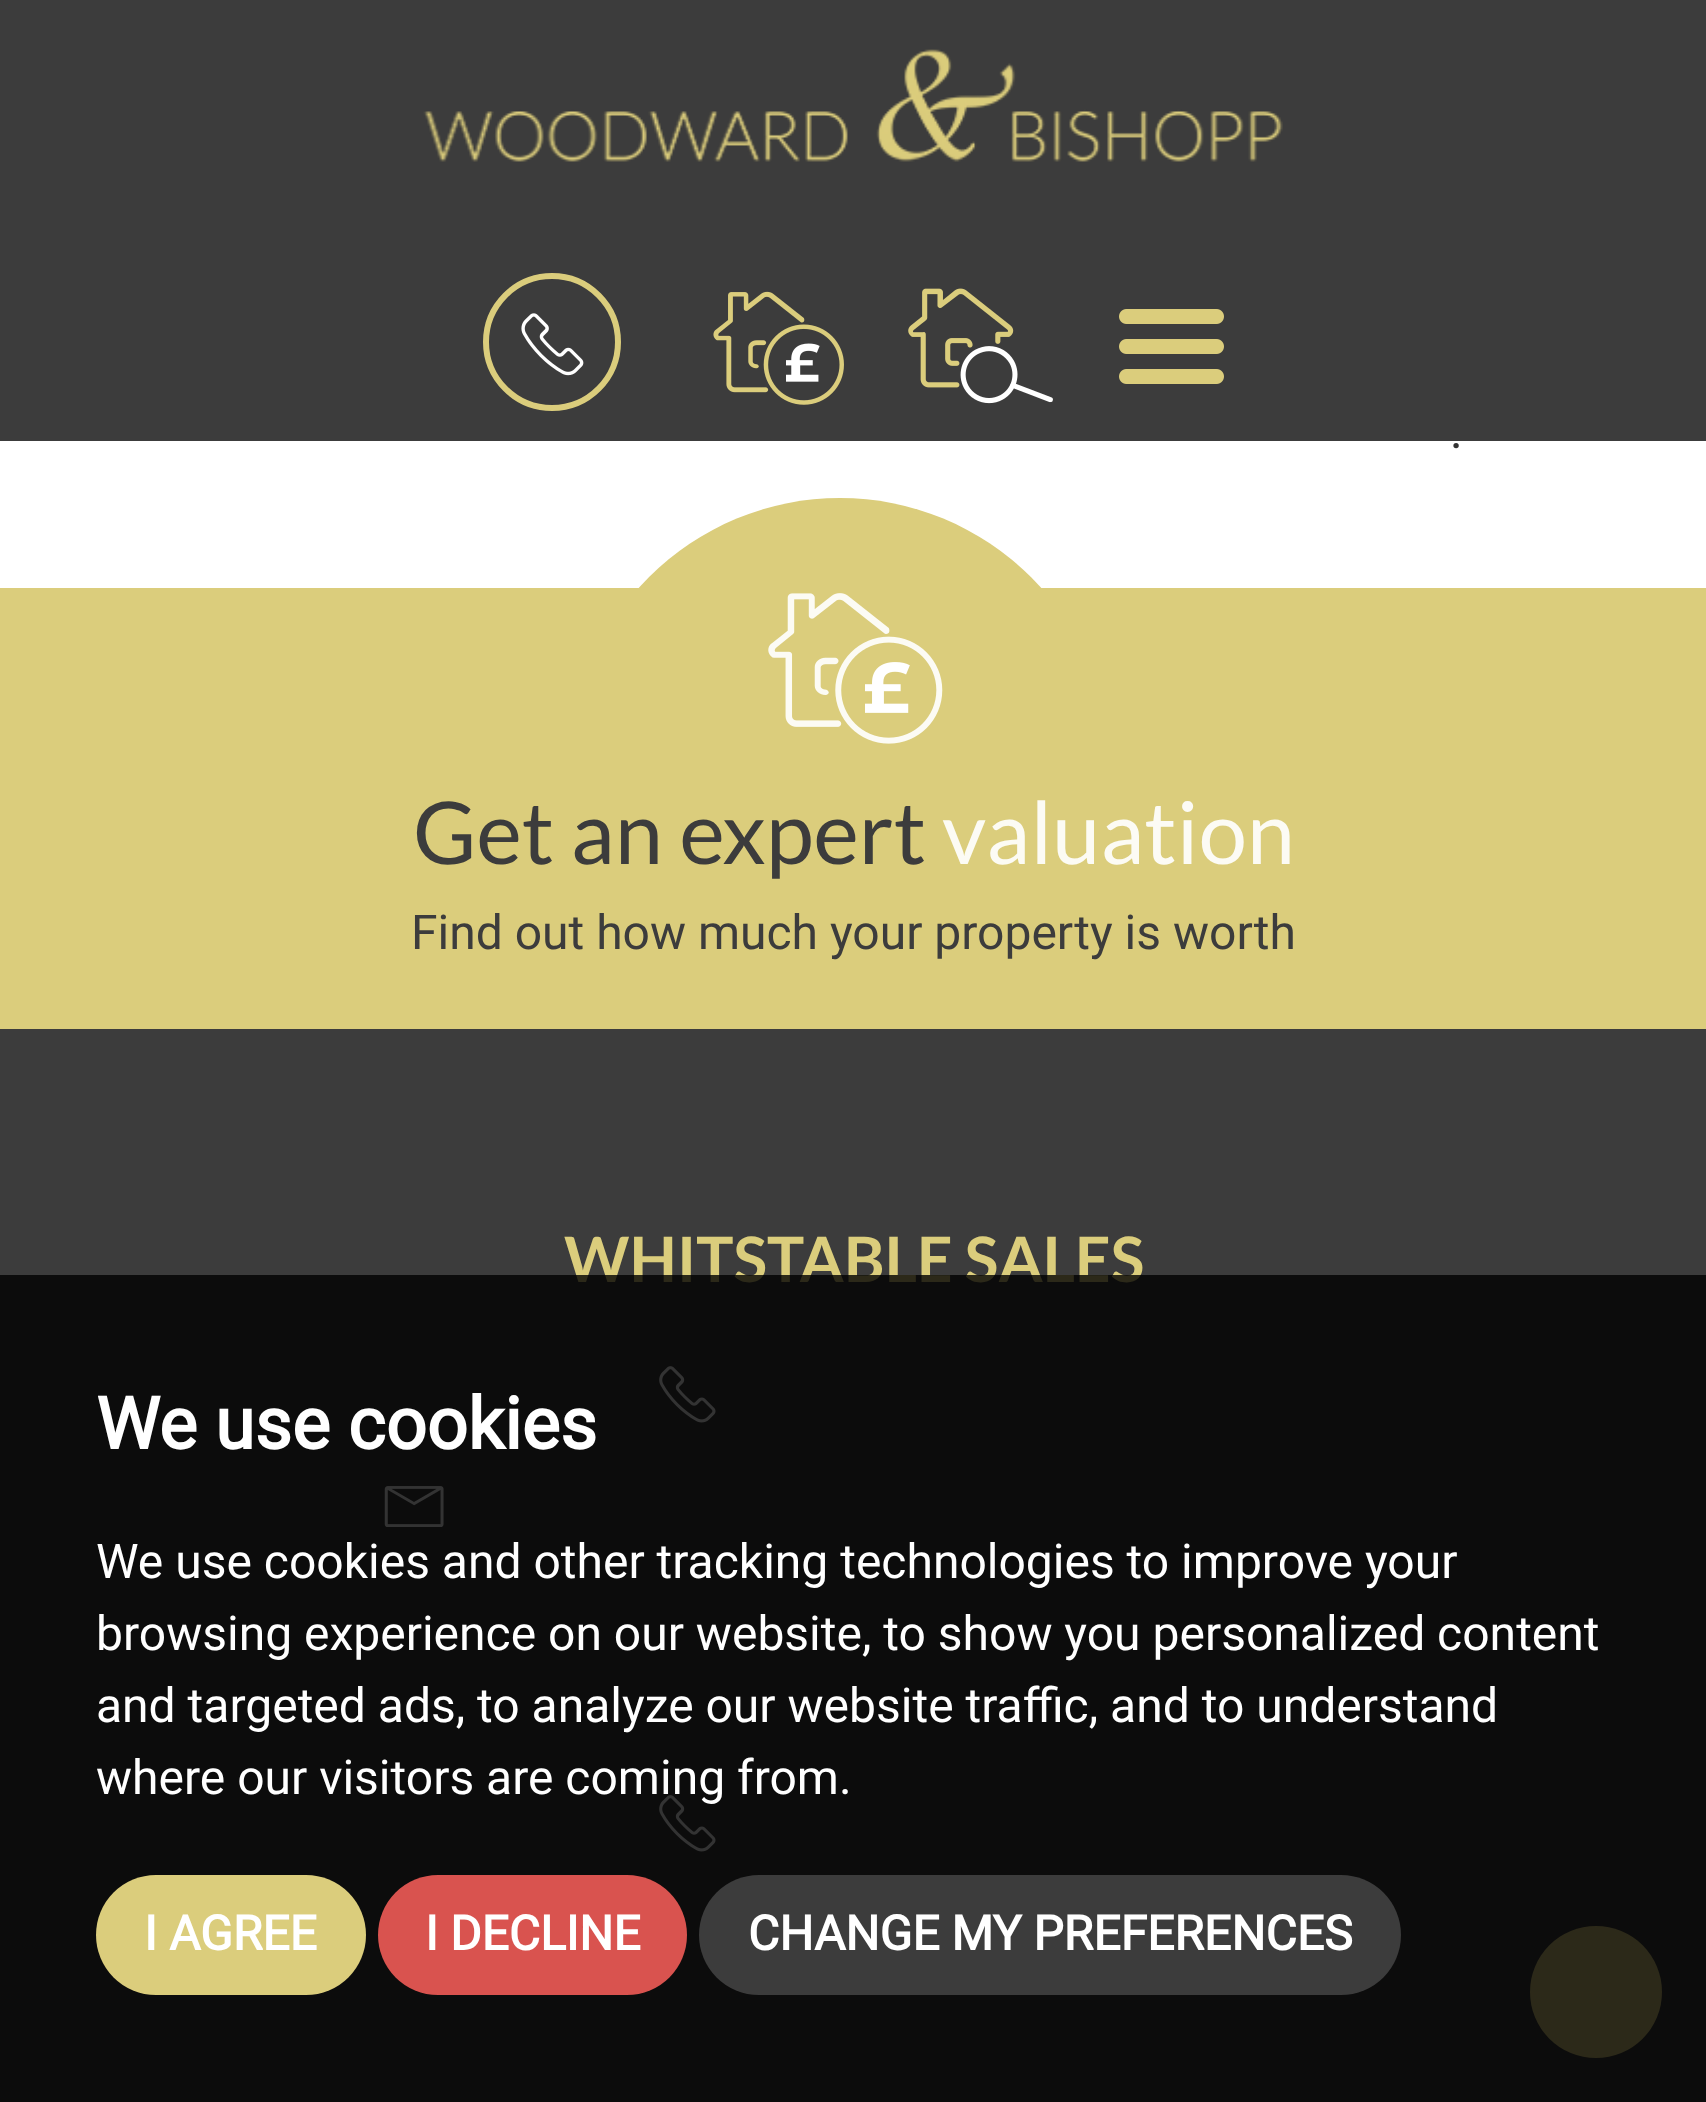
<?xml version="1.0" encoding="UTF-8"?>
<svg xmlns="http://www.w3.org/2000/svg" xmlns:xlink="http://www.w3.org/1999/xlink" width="1706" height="2102">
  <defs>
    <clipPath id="clip1"><rect x="630" y="498" width="450" height="450" /></clipPath>
  </defs>
  <rect width="100%" height="100%" fill="#ffffff" />
  <rect width="1706" height="441" fill="#3c3c3c" />
  <image x="423" y="49" width="860" height="113" xlink:href="image1.png" />
  <circle cx="552" cy="342" r="66" fill="none" stroke="#dbcd7c" stroke-width="6" />
  <image x="521" y="313" width="63" height="63" xlink:href="image2.png" />
  <image x="713" y="291" width="131" height="114" xlink:href="image3.png" />
  <image x="908" y="288" width="145" height="116" xlink:href="image4.png" />
  <image x="1119" y="309" width="105" height="75" xlink:href="image5.png" />
  <g clip-path="url(#clip1)">
    <circle cx="840" cy="768" r="270" fill="#dbcd7c" />
  </g>
  <rect y="588" width="1706" height="441" fill="#dbcd7c" />
  <image x="768" y="593" width="175" height="151" xlink:href="image6.png" />
  <rect y="1029" width="1706" height="1073" fill="#3c3c3c" />
  <image x="659" y="1366" width="57" height="57" xlink:href="image7.png" />
  <image x="384" y="1486" width="60" height="41" xlink:href="image8.png" />
  <image x="659" y="1795" width="57" height="57" xlink:href="image7.png" />
  <circle cx="1596" cy="1992" r="66" fill="#dbcd7c" />
  <text x="1450" y="448" style="font-family: Roboto; font-size: 48px; fill: #333333">.</text>
  <text x="413" y="864" style="font-family: Lato; font-size: 86.5px; fill: #3c3c3c">Get an expert</text>
  <text x="942" y="864" style="font-family: Lato; font-size: 86.5px; fill: #fcfbf4">valuation</text>
  <text x="411" y="949" style="font-family: Roboto; font-size: 48px; fill: #3c3c3c">Find out how much your property is worth</text>
  <text x="564" y="1282" style="font-family: Lato; font-size: 62.5px; font-weight: bold; fill: #dbcd7c">WHITSTABLE SALES</text>
  <rect y="1275" width="1706" height="827" fill="#000000" fill-opacity="0.8" />
  <text x="96" y="1449" style="font-family: Roboto; font-size: 72px; font-weight: bold; fill: #ffffff">We use cookies</text>
  <text x="96" y="1578" style="font-family: Roboto; font-size: 48px; fill: #ffffff">We use cookies and other tracking technologies to improve your</text>
  <text x="96" y="1650" style="font-family: Roboto; font-size: 48px; fill: #ffffff">browsing experience on our website, to show you personalized content</text>
  <text x="96" y="1722" style="font-family: Roboto; font-size: 48px; fill: #ffffff">and targeted ads, to analyze our website traffic, and to understand</text>
  <text x="96" y="1794" style="font-family: Roboto; font-size: 48px; fill: #ffffff">where our visitors are coming from.</text>
  <rect x="96" y="1875" width="270" height="120" rx="60" fill="#dbcd7c" />
  <text x="144" y="1950" style="font-family: Roboto; font-size: 48px; font-weight: bold; fill: #ffffff">I AGREE</text>
  <rect x="378" y="1875" width="309" height="120" rx="60" fill="#d9534f" />
  <text x="425" y="1950" style="font-family: Roboto; font-size: 48px; font-weight: bold; fill: #ffffff">I DECLINE</text>
  <rect x="699" y="1875" width="702" height="120" rx="60" fill="#3c3c3c" />
  <text x="748" y="1950" style="font-family: Roboto; font-size: 48px; font-weight: bold; fill: #ffffff">CHANGE MY PREFERENCES</text>
</svg>
